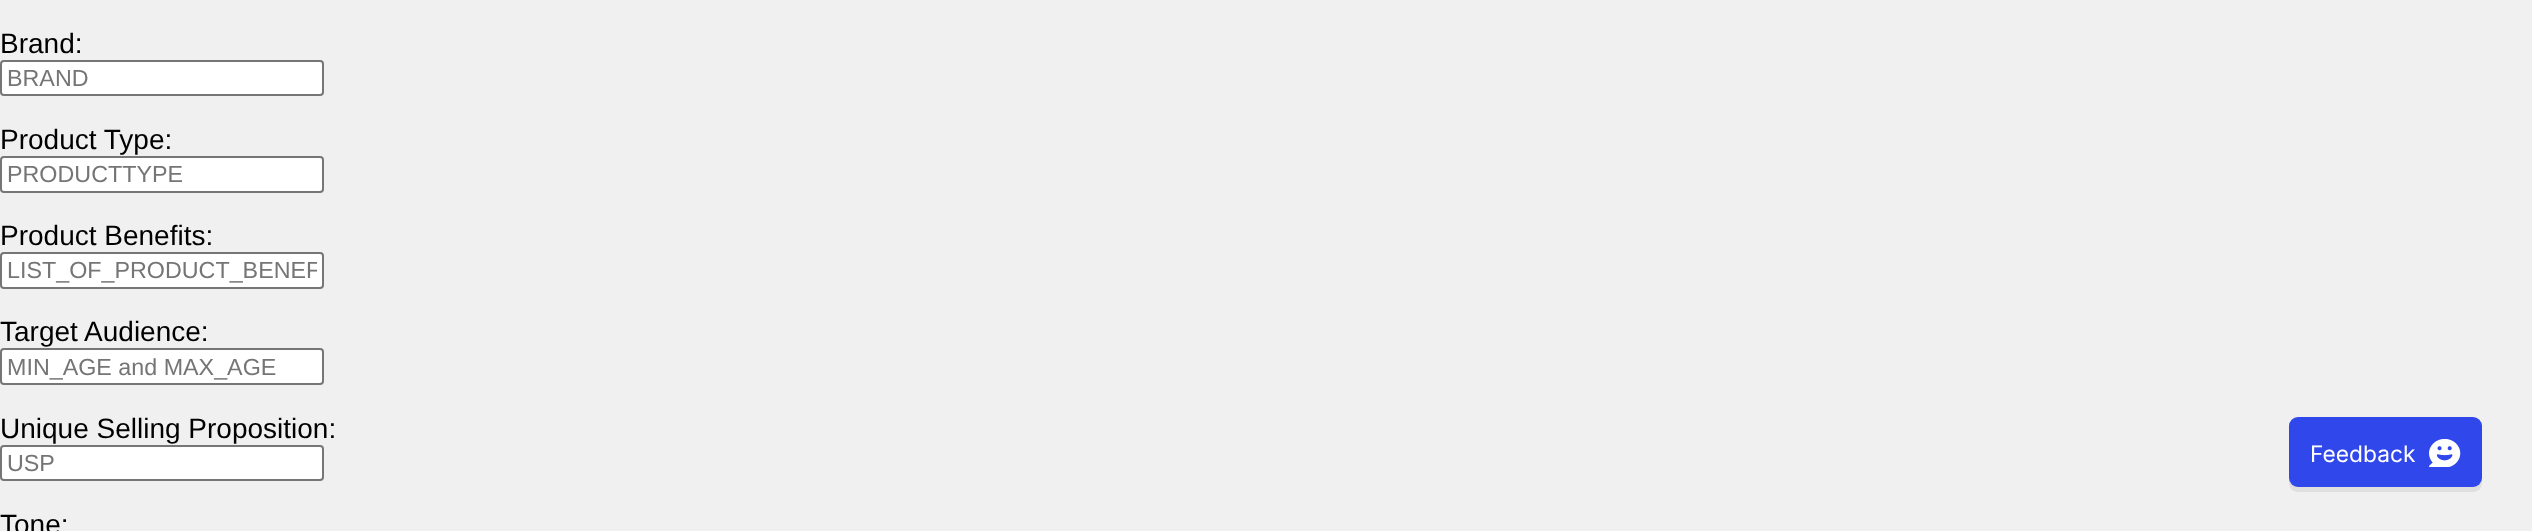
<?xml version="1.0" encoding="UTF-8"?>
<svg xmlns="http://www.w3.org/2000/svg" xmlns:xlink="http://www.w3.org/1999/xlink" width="2532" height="531">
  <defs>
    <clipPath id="clip1"><rect x="7" y="257" width="310" height="27" /></clipPath>
  </defs>
  <rect width="100%" height="100%" fill="#f0f0f0" />
  <rect x="1" y="61" width="322" height="34" rx="3" fill="#ffffff" stroke="#767676" stroke-width="2" />
  <rect x="1" y="157" width="322" height="35" rx="3" fill="#ffffff" stroke="#767676" stroke-width="2" />
  <rect x="1" y="253" width="322" height="35" rx="3" fill="#ffffff" stroke="#767676" stroke-width="2" />
  <rect x="1" y="349" width="322" height="35" rx="3" fill="#ffffff" stroke="#767676" stroke-width="2" />
  <rect x="1" y="446" width="322" height="34" rx="3" fill="#ffffff" stroke="#767676" stroke-width="2" />
  <path d="M 2289 478 v 5 c 0 5 4 9 9 9 h 175 c 5 0 9 -4 9 -9 v -52 v -3 v 50 c 0 5 -4 8 -9 8 h -175 c -5 0 -9 -3 -9 -8 z" fill="#dfdfdf" />
  <rect x="2289" y="417" width="193" height="70" rx="9" fill="#3047eb" />
  <image x="2429" y="439" width="32" height="28" xlink:href="image1.png" />
  <text x="0" y="53" style="font-family: Liberation Sans; font-size: 28px; fill: #000000">Brand:</text>
  <text x="7" y="86" style="font-family: Liberation Sans; font-size: 23.3px; fill: #757575">BRAND</text>
  <text x="0" y="149" style="font-family: Liberation Sans; font-size: 28px; fill: #000000">Product Type:</text>
  <text x="7" y="182" style="font-family: Liberation Sans; font-size: 23.3px; fill: #757575">PRODUCTTYPE</text>
  <text x="0" y="245" style="font-family: Liberation Sans; font-size: 28px; fill: #000000">Product Benefits:</text>
  <g clip-path="url(#clip1)">
    <text x="7" y="278" style="font-family: Liberation Sans; font-size: 23.3px; fill: #757575">LIST_OF_PRODUCT_BENEF</text>
  </g>
  <text x="0" y="341" style="font-family: Liberation Sans; font-size: 28px; fill: #000000">Target Audience:</text>
  <text x="7" y="375" style="font-family: Liberation Sans; font-size: 23.3px; fill: #757575">MIN_AGE and MAX_AGE</text>
  <text x="0" y="438" style="font-family: Liberation Sans; font-size: 28px; fill: #000000">Unique Selling Proposition:</text>
  <text x="7" y="471" style="font-family: Liberation Sans; font-size: 23.3px; fill: #757575">USP</text>
  <text x="0" y="534" style="font-family: Liberation Sans; font-size: 28px; fill: #000000">Tone:</text>
  <text x="2310" y="462" style="font-family: Inter; font-size: 22.75px; fill: #ffffff">Feedback</text>
</svg>
